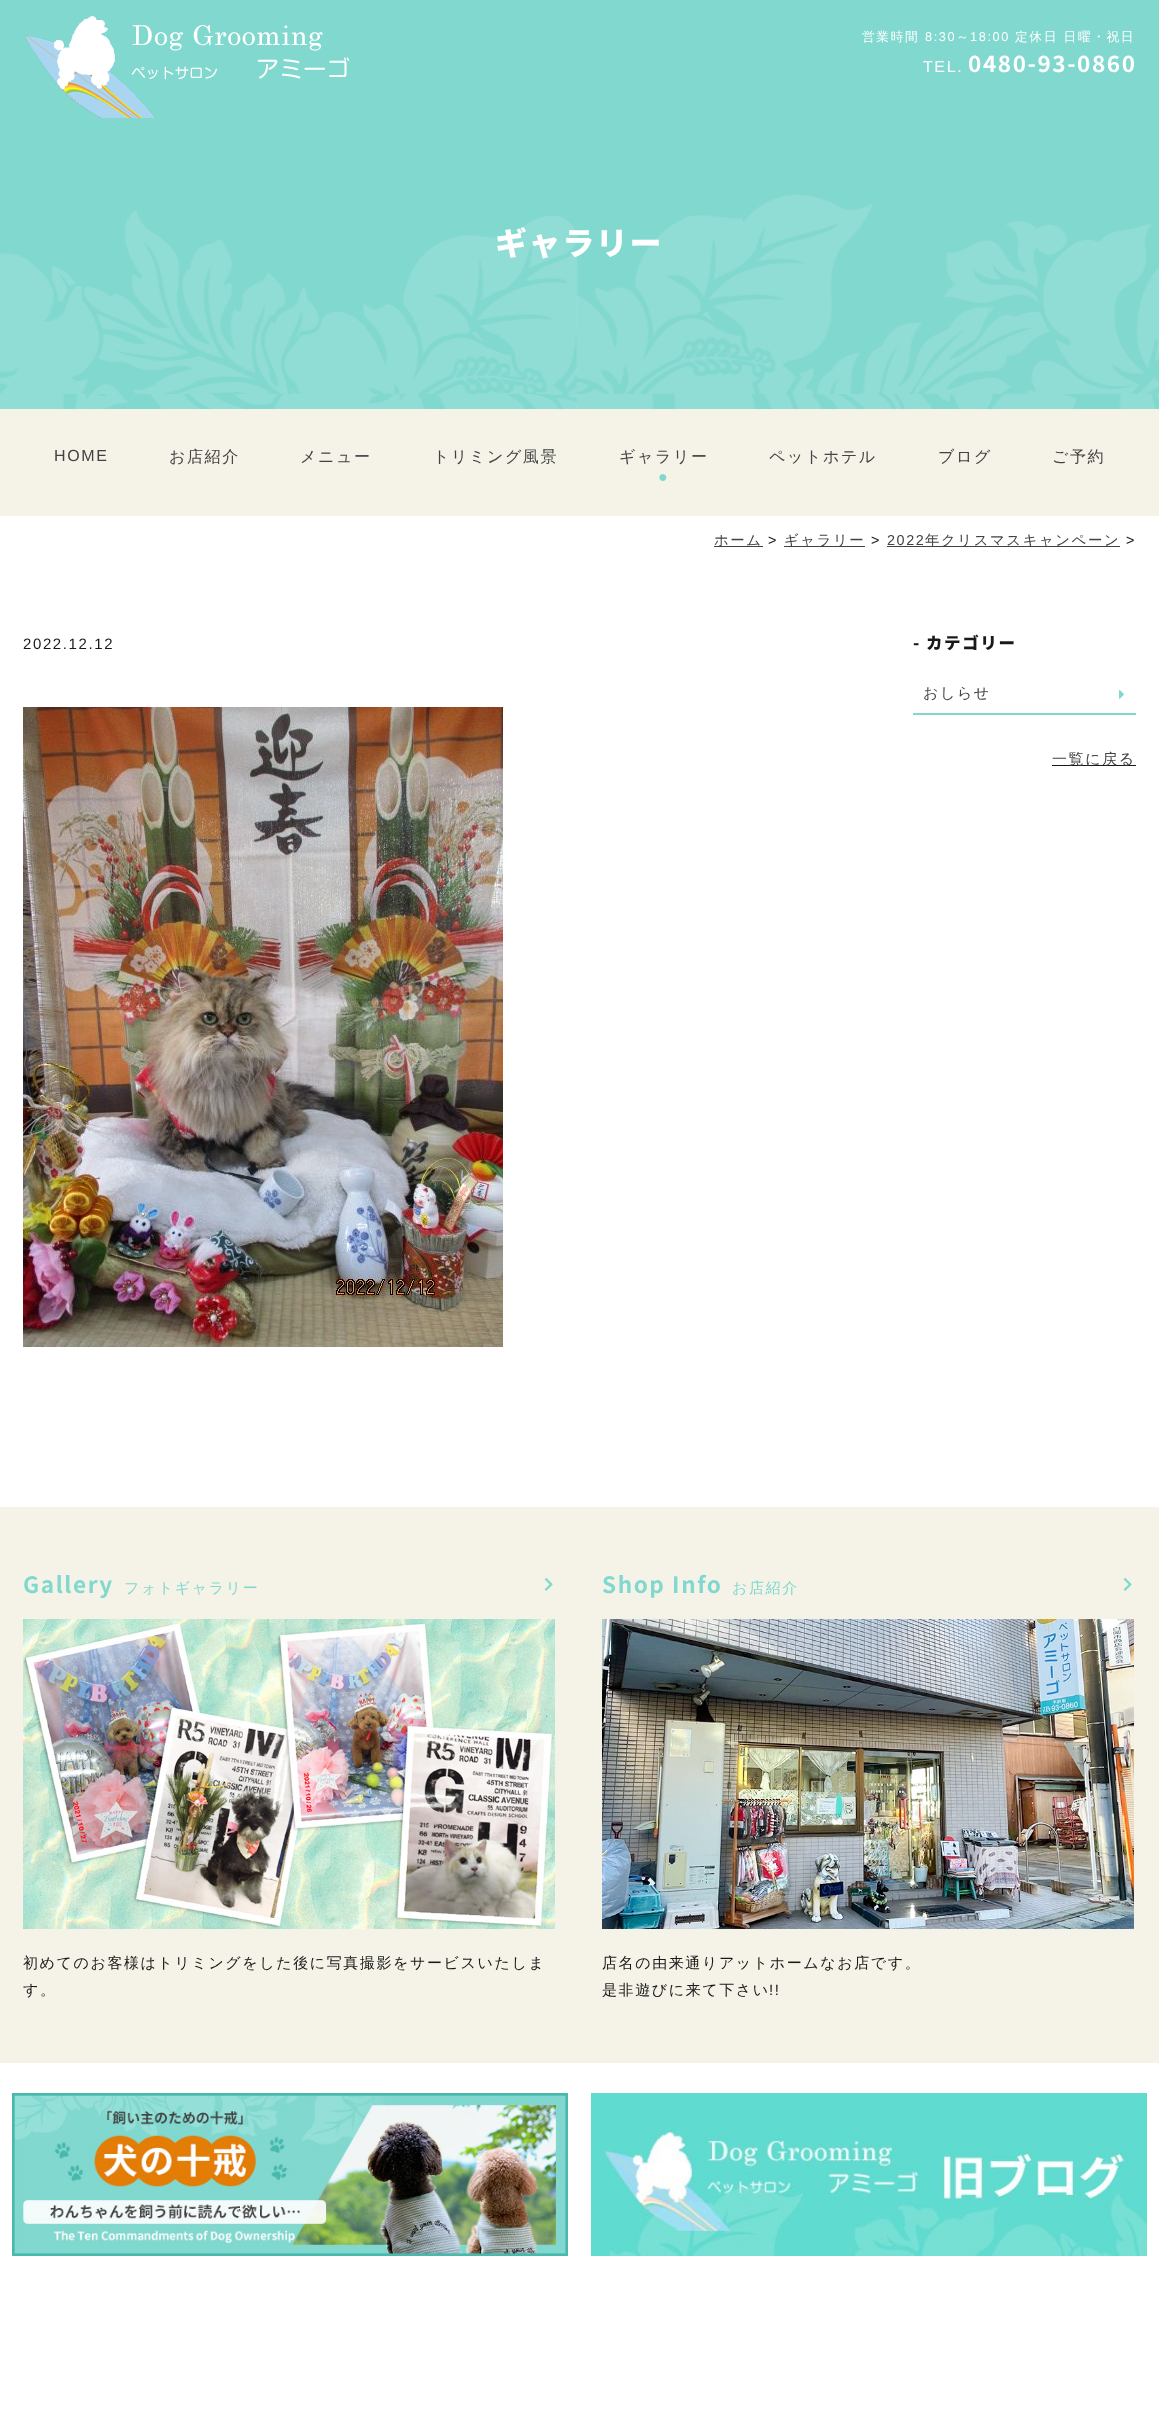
<?xml version="1.0" encoding="UTF-8"?>
<svg xmlns="http://www.w3.org/2000/svg" xmlns:xlink="http://www.w3.org/1999/xlink" width="1159" height="2431">
  <rect width="100%" height="100%" fill="#ffffff" />
  <image x="0" y="0" width="1159" height="409" xlink:href="image1.png" />
  <image x="24" y="16" width="325" height="102" xlink:href="image2.png" />
  <image x="0" y="129" width="1159" height="265" xlink:href="image3.png" />
  <rect y="409" width="1159" height="107" fill="#f5f3e8" />
  <rect x="714" y="546" width="49" height="1" fill="#424242" />
  <rect x="784" y="546" width="81" height="1" fill="#424242" />
  <rect x="887" y="546" width="233" height="1" fill="#424242" />
  <image x="23" y="707" width="480" height="640" xlink:href="image4.png" />
  <rect x="913" y="713" width="223" height="2" fill="#81d8cf" />
  <image x="1119" y="690" width="5" height="9" xlink:href="image5.png" />
  <rect x="1052" y="765" width="84" height="1" fill="#191919" />
  <rect y="1507" width="1159" height="556" fill="#f5f3e8" />
  <image x="544" y="1578" width="9" height="13" xlink:href="image6.png" />
  <image x="23" y="1619" width="532" height="310" xlink:href="image7.png" />
  <image x="1123" y="1578" width="9" height="13" xlink:href="image6.png" />
  <image x="602" y="1619" width="532" height="310" xlink:href="image8.png" />
  <image x="12" y="2093" width="556" height="163" xlink:href="image9.png" />
  <image x="591" y="2093" width="556" height="163" xlink:href="image10.png" />
  <text x="862" y="41" style="font-family: WenQuanYi Zen Hei; font-size: 12.75px; font-weight: 500; letter-spacing: 1.6px; fill: #ffffff">営業時間</text>
  <text x="925" y="41" style="font-family: Liberation Sans; font-size: 12.75px; letter-spacing: 1.6px; fill: #ffffff">8:30</text>
  <text x="956" y="41" style="font-family: WenQuanYi Zen Hei; font-size: 12.75px; font-weight: 500; letter-spacing: 1.6px; fill: #ffffff">～</text>
  <text x="970" y="41" style="font-family: Liberation Sans; font-size: 12.75px; letter-spacing: 1.6px; fill: #ffffff">18:00</text>
  <text x="1015" y="41" style="font-family: WenQuanYi Zen Hei; font-size: 12.75px; font-weight: 500; letter-spacing: 1.6px; fill: #ffffff">定休日 日曜・祝日</text>
  <text x="923" y="72" style="font-family: Liberation Sans; font-size: 16px; letter-spacing: 1.6px; fill: #ffffff">TEL.</text>
  <text x="968" y="72" style="font-family: Noto Sans JP; font-size: 22.5px; font-weight: bold; letter-spacing: 1.6px; fill: #ffffff">0480-93-0860</text>
  <text x="495" y="255" style="font-family: Noto Sans JP; font-size: 32px; font-weight: 900; letter-spacing: 1.6px; fill: #ffffff">ギャラリー</text>
  <text x="54" y="461" style="font-family: Liberation Sans; font-size: 16px; letter-spacing: 1.6px; fill: #424242">HOME</text>
  <text x="169" y="462" style="font-family: WenQuanYi Zen Hei; font-size: 16px; font-weight: 500; letter-spacing: 1.6px; fill: #424242">お店紹介</text>
  <text x="300" y="462" style="font-family: WenQuanYi Zen Hei; font-size: 16px; font-weight: 500; letter-spacing: 1.6px; fill: #424242">メニュー</text>
  <text x="433" y="462" style="font-family: WenQuanYi Zen Hei; font-size: 16px; font-weight: 500; letter-spacing: 1.6px; fill: #424242">トリミング風景</text>
  <text x="619" y="462" style="font-family: WenQuanYi Zen Hei; font-size: 16px; font-weight: 500; letter-spacing: 1.6px; fill: #424242">ギャラリー</text>
  <text x="658" y="482" style="font-family: Liberation Sans; font-size: 16px; letter-spacing: 1.6px; fill: #81d8cf">●</text>
  <text x="769" y="462" style="font-family: WenQuanYi Zen Hei; font-size: 16px; font-weight: 500; letter-spacing: 1.6px; fill: #424242">ペットホテル</text>
  <text x="938" y="462" style="font-family: WenQuanYi Zen Hei; font-size: 16px; font-weight: 500; letter-spacing: 1.6px; fill: #424242">ブログ</text>
  <text x="1052" y="462" style="font-family: WenQuanYi Zen Hei; font-size: 16px; font-weight: 500; letter-spacing: 1.6px; fill: #424242">ご予約</text>
  <text x="714" y="545" style="font-family: WenQuanYi Zen Hei; font-size: 14.4px; font-weight: 500; letter-spacing: 1.6px; fill: #424242">ホーム</text>
  <text x="768" y="545" style="font-family: Liberation Sans; font-size: 14.4px; letter-spacing: 1.6px; fill: #191919">&gt;</text>
  <text x="784" y="545" style="font-family: WenQuanYi Zen Hei; font-size: 14.4px; font-weight: 500; letter-spacing: 1.6px; fill: #424242">ギャラリー</text>
  <text x="871" y="545" style="font-family: Liberation Sans; font-size: 14.4px; letter-spacing: 1.6px; fill: #191919">&gt;</text>
  <text x="887" y="545" style="font-family: Liberation Sans; font-size: 14.4px; letter-spacing: 1.6px; fill: #424242">2022</text>
  <text x="925" y="545" style="font-family: WenQuanYi Zen Hei; font-size: 14.4px; font-weight: 500; letter-spacing: 1.6px; fill: #424242">年クリスマスキャンペーン</text>
  <text x="1126" y="545" style="font-family: Liberation Sans; font-size: 14.4px; letter-spacing: 1.6px; fill: #191919">&gt;</text>
  <text x="23" y="649" style="font-family: Liberation Sans; font-size: 15px; letter-spacing: 1.6px; fill: #191919">2022.12.12</text>
  <text x="913" y="649" style="font-family: Noto Sans JP; font-size: 16.5px; font-weight: 900; letter-spacing: 1.6px; fill: #191919">-</text>
  <text x="926" y="649" style="font-family: Noto Sans JP; font-size: 16.5px; font-weight: 900; letter-spacing: 1.6px; fill: #191919">カテゴリー</text>
  <text x="923" y="698" style="font-family: WenQuanYi Zen Hei; font-size: 15px; font-weight: 500; letter-spacing: 1.6px; fill: #424242">おしらせ</text>
  <text x="1052" y="764" style="font-family: WenQuanYi Zen Hei; font-size: 15px; font-weight: 500; letter-spacing: 1.6px; fill: #424242">一覧に戻る</text>
  <text x="23" y="1593" style="font-family: Noto Sans JP; font-size: 22.5px; font-weight: bold; letter-spacing: 1.6px; fill: #81d8cf">Gallery</text>
  <text x="124" y="1593" style="font-family: WenQuanYi Zen Hei; font-size: 15px; font-weight: 500; letter-spacing: 1.6px; fill: #81d8cf">フォトギャラリー</text>
  <text x="23" y="1968" style="font-family: WenQuanYi Zen Hei; font-size: 15px; font-weight: 500; letter-spacing: 1.6px; fill: #191919">初めてのお客様はトリミングをした後に写真撮影をサービスいたしま</text>
  <text x="23" y="1995" style="font-family: WenQuanYi Zen Hei; font-size: 15px; font-weight: 500; letter-spacing: 1.6px; fill: #191919">す。</text>
  <text x="602" y="1593" style="font-family: Noto Sans JP; font-size: 22.5px; font-weight: bold; letter-spacing: 1.6px; fill: #81d8cf">Shop Info</text>
  <text x="732" y="1593" style="font-family: WenQuanYi Zen Hei; font-size: 15px; font-weight: 500; letter-spacing: 1.6px; fill: #81d8cf">お店紹介</text>
  <text x="602" y="1968" style="font-family: WenQuanYi Zen Hei; font-size: 15px; font-weight: 500; letter-spacing: 1.6px; fill: #191919">店名の由来通りアットホームなお店です。</text>
  <text x="602" y="1995" style="font-family: WenQuanYi Zen Hei; font-size: 15px; font-weight: 500; letter-spacing: 1.6px; fill: #191919">是非遊びに来て下さい</text>
  <text x="769" y="1995" style="font-family: Liberation Sans; font-size: 15px; letter-spacing: 1.6px; fill: #191919">!!</text>
</svg>
